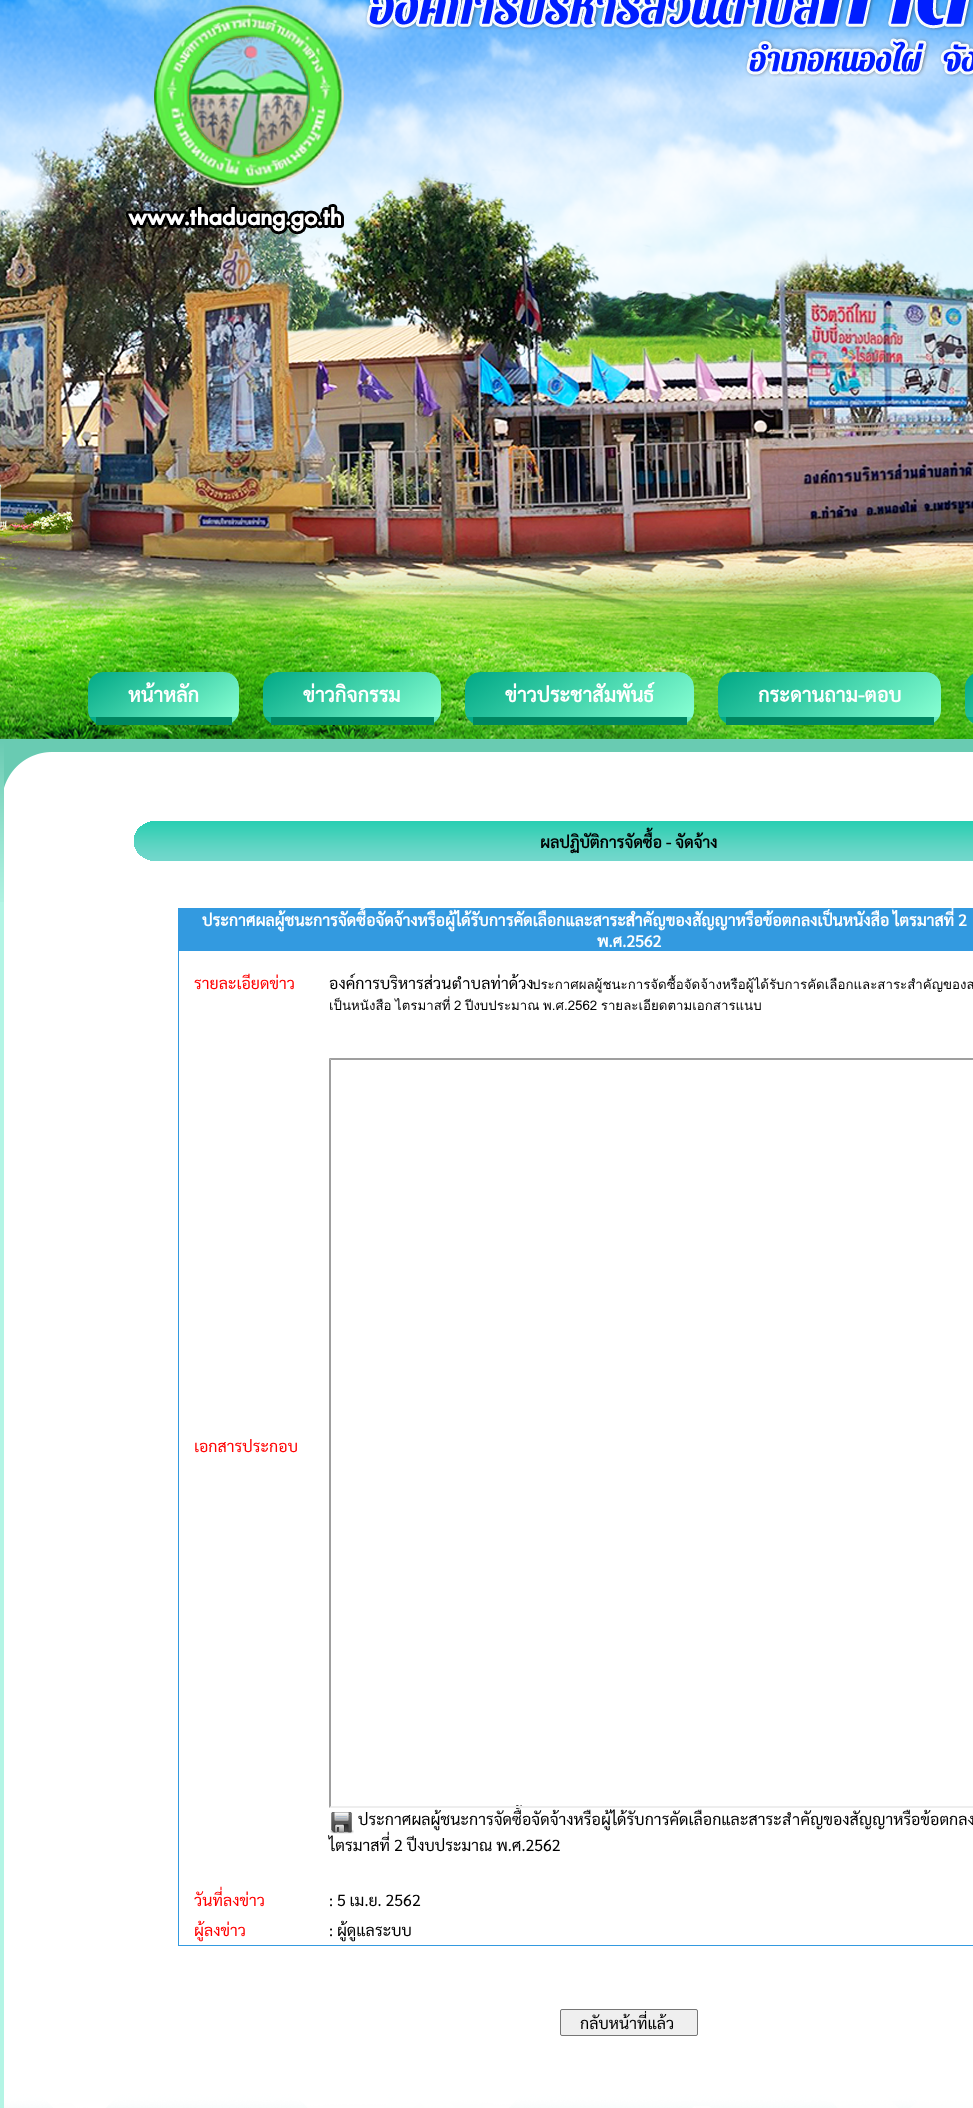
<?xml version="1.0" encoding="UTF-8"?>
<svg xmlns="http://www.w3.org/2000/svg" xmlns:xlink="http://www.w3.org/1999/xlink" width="973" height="2108">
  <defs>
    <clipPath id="clip1"><rect x="88" y="672" width="151" height="53" rx="15" /></clipPath>
    <linearGradient id="g1" gradientUnits="userSpaceOnUse" x1="128" y1="644" x2="199" y2="745"><stop offset="0" stop-color="#00a886" /><stop offset="1" stop-color="#87ffd2" /></linearGradient>
    <linearGradient id="g2" gradientUnits="userSpaceOnUse" x1="128" y1="689" x2="199" y2="790"><stop offset="0" stop-color="#00a886" /><stop offset="1" stop-color="#87ffd2" /></linearGradient>
    <clipPath id="clip2"><rect x="263" y="672" width="178" height="53" rx="15" /></clipPath>
    <linearGradient id="g3" gradientUnits="userSpaceOnUse" x1="312" y1="638" x2="392" y2="751"><stop offset="0" stop-color="#00a886" /><stop offset="1" stop-color="#87ffd2" /></linearGradient>
    <linearGradient id="g4" gradientUnits="userSpaceOnUse" x1="312" y1="683" x2="392" y2="796"><stop offset="0" stop-color="#00a886" /><stop offset="1" stop-color="#87ffd2" /></linearGradient>
    <clipPath id="clip3"><rect x="465" y="672" width="229" height="53" rx="15" /></clipPath>
    <linearGradient id="g5" gradientUnits="userSpaceOnUse" x1="531" y1="626" x2="628" y2="763"><stop offset="0" stop-color="#00a886" /><stop offset="1" stop-color="#87ffd2" /></linearGradient>
    <linearGradient id="g6" gradientUnits="userSpaceOnUse" x1="531" y1="671" x2="628" y2="808"><stop offset="0" stop-color="#00a886" /><stop offset="1" stop-color="#87ffd2" /></linearGradient>
    <clipPath id="clip4"><rect x="718" y="672" width="223" height="53" rx="15" /></clipPath>
    <linearGradient id="g7" gradientUnits="userSpaceOnUse" x1="782" y1="627" x2="877" y2="762"><stop offset="0" stop-color="#00a886" /><stop offset="1" stop-color="#87ffd2" /></linearGradient>
    <linearGradient id="g8" gradientUnits="userSpaceOnUse" x1="782" y1="672" x2="877" y2="807"><stop offset="0" stop-color="#00a886" /><stop offset="1" stop-color="#87ffd2" /></linearGradient>
    <clipPath id="clip5"><rect x="965" y="672" width="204" height="53" rx="15" /></clipPath>
    <linearGradient id="g9" gradientUnits="userSpaceOnUse" x1="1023" y1="631" x2="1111" y2="758"><stop offset="0" stop-color="#00a886" /><stop offset="1" stop-color="#87ffd2" /></linearGradient>
    <linearGradient id="g10" gradientUnits="userSpaceOnUse" x1="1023" y1="676" x2="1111" y2="803"><stop offset="0" stop-color="#00a886" /><stop offset="1" stop-color="#87ffd2" /></linearGradient>
    <clipPath id="clip6"><rect x="562" y="2011" width="134" height="23" /></clipPath>
  </defs>
  <rect width="100%" height="100%" fill="#b4f5e5" />
  <image x="0" y="0" width="4" height="739" xlink:href="image1.png" />
  <image x="4" y="0" width="969" height="739" xlink:href="image2.png" />
  <image x="154" y="5" width="190" height="183" xlink:href="image3.png" />
  <image x="365" y="0" width="608" height="77" xlink:href="image4.png" />
  <g clip-path="url(#clip1)">
    <path d="M 103 672 h 121 c 8.5 0 15 6.5 15 15 v 30 h -151 v -30 c 0 -8.5 6.5 -15 15 -15 z" fill="url(#g1)" />
    <rect x="88" y="717" width="151" height="7" fill="url(#g2)" />
  </g>
  <rect x="96" y="717" width="136" height="8" fill="#008661" />
  <g clip-path="url(#clip2)">
    <path d="M 278 672 h 148 c 8.5 0 15 6.5 15 15 v 30 h -178 v -30 c 0 -8.5 6.5 -15 15 -15 z" fill="url(#g3)" />
    <rect x="263" y="717" width="178" height="7" fill="url(#g4)" />
  </g>
  <rect x="271" y="717" width="163" height="8" fill="#008661" />
  <g clip-path="url(#clip3)">
    <path d="M 480 672 h 199 c 8.5 0 15 6.5 15 15 v 30 h -229 v -30 c 0 -8.5 6.5 -15 15 -15 z" fill="url(#g5)" />
    <rect x="465" y="717" width="229" height="7" fill="url(#g6)" />
  </g>
  <rect x="473" y="717" width="214" height="8" fill="#008661" />
  <g clip-path="url(#clip4)">
    <path d="M 733 672 h 193 c 8.5 0 15 6.5 15 15 v 30 h -223 v -30 c 0 -8.5 6.5 -15 15 -15 z" fill="url(#g7)" />
    <rect x="718" y="717" width="223" height="7" fill="url(#g8)" />
  </g>
  <rect x="726" y="717" width="208" height="8" fill="#008661" />
  <g clip-path="url(#clip5)">
    <path d="M 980 672 h -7 c 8.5 0 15 6.5 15 15 v 30 h -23 v -30 c 0 -8.5 6.5 -15 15 -15 z" fill="url(#g9)" />
    <rect x="965" y="717" width="8" height="7" fill="url(#g10)" />
  </g>
  <image x="0" y="739" width="4" height="163" xlink:href="image5.png" />
  <image x="4" y="739" width="969" height="77" xlink:href="image6.png" />
  <rect x="4" y="816" width="969" height="1275" fill="#ffffff" />
  <image x="134" y="821" width="839" height="40" xlink:href="image7.png" />
  <rect x="178" y="908" width="795" height="1038" fill="#339ae0" />
  <rect x="179" y="951" width="794" height="86" fill="#ffffff" />
  <rect x="179" y="1037" width="794" height="818" fill="#ffffff" />
  <path d="M 329 1058 h 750 l -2 2 h -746 z" fill="#9f9f9f" />
  <image x="330" y="1812" width="24" height="22" xlink:href="image8.png" />
  <rect x="179" y="1855" width="794" height="30" fill="#ffffff" />
  <rect x="179" y="1885" width="794" height="30" fill="#ffffff" />
  <rect x="179" y="1915" width="794" height="30" fill="#ffffff" />
  <rect x="560.5" y="2009.5" width="137" height="26" rx="1.5" fill="#efefef" stroke="#767676" />
  <image x="4" y="2091" width="969" height="17" xlink:href="image9.png" />
  <text x="128" y="702" style="font-family: Sarabun; font-size: 20px; font-weight: bold; fill: #ffffff">หน้าหลัก</text>
  <text x="303" y="702" style="font-family: Sarabun; font-size: 20px; font-weight: bold; fill: #ffffff">ข่าวกิจกรรม</text>
  <text x="505" y="702" style="font-family: Sarabun; font-size: 20px; font-weight: bold; fill: #ffffff">ข่าวประชาสัมพันธ์</text>
  <text x="758" y="702" style="font-family: Sarabun; font-size: 20px; font-weight: bold; fill: #ffffff">กระดานถาม-ตอบ</text>
  <text x="540" y="848" style="font-family: Sarabun; font-size: 16px; font-weight: bold; fill: #000000">ผลปฏิบัติการจัดซื้อ - จัดจ้าง</text>
  <text x="202" y="926" style="font-family: Sarabun; font-size: 16px; font-weight: bold; fill: #ffffff">ประกาศผลผู้ชนะการจัดซื้อจัดจ้างหรือผู้ได้รับการคัดเลือกและสาระสำคัญของสัญญาหรือข้อตกลงเป็นหนังสือ ไตรมาสที่ 2</text>
  <text x="597" y="947" style="font-family: Sarabun; font-size: 16px; font-weight: bold; fill: #ffffff">พ.ศ.2562</text>
  <text x="194" y="989" style="font-family: Sarabun; font-size: 16px; fill: #ff0000">รายละเอียดข่าว</text>
  <text x="329" y="989" style="font-family: Sarabun; font-size: 16px; fill: #000000">องค์การบริหารส่วนตำบลท่าด้วง</text>
  <text x="532" y="989" style="font-family: Loma; font-size: 13.3px; fill: #000000">ประกาศผลผู้ชนะการจัดซื้อจัดจ้างหรือผู้ได้รับการคัดเลือกและสาระสำคัญของส</text>
  <text x="329" y="1010" word-spacing="-1" style="font-family: Loma; font-size: 13.3px; fill: #000000">เป็นหนังสือ ไตรมาสที่ 2 ปีงบประมาณ พ.ศ.2562 รายละเอียดตามเอกสารแนบ</text>
  <text x="194" y="1452" style="font-family: Sarabun; font-size: 16px; fill: #ff0000">เอกสารประกอบ</text>
  <text x="358" y="1825" style="font-family: Sarabun; font-size: 16px; fill: #000000">ประกาศผลผู้ชนะการจัดซื้อจัดจ้างหรือผู้ได้รับการคัดเลือกและสาระสำคัญของสัญญาหรือข้อตกลง</text>
  <path d="M 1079 1808 h -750 l 2 -2 h 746 z" fill="#eeeeee" />
  <path d="M 329 1808 v -750 l 2 2 v 746 z" fill="#9f9f9f" />
  <text x="329" y="1851" style="font-family: Sarabun; font-size: 16px; fill: #000000">ไตรมาสที่ 2 ปีงบประมาณ พ.ศ.2562</text>
  <text x="194" y="1906" style="font-family: Sarabun; font-size: 16px; fill: #ff0000">วันที่ลงข่าว</text>
  <text x="329" y="1906" style="font-family: Sarabun; font-size: 16px; fill: #000000">: 5 เม.ย. 2562</text>
  <text x="194" y="1936" style="font-family: Sarabun; font-size: 16px; fill: #ff0000">ผู้ลงข่าว</text>
  <text x="329" y="1936" style="font-family: Sarabun; font-size: 16px; fill: #000000">: ผู้ดูแลระบบ</text>
  <g clip-path="url(#clip6)">
    <text x="580" y="2029" style="font-family: Sarabun; font-size: 16px; fill: #000000">กลับหน้าที่แล้ว</text>
  </g>
</svg>
